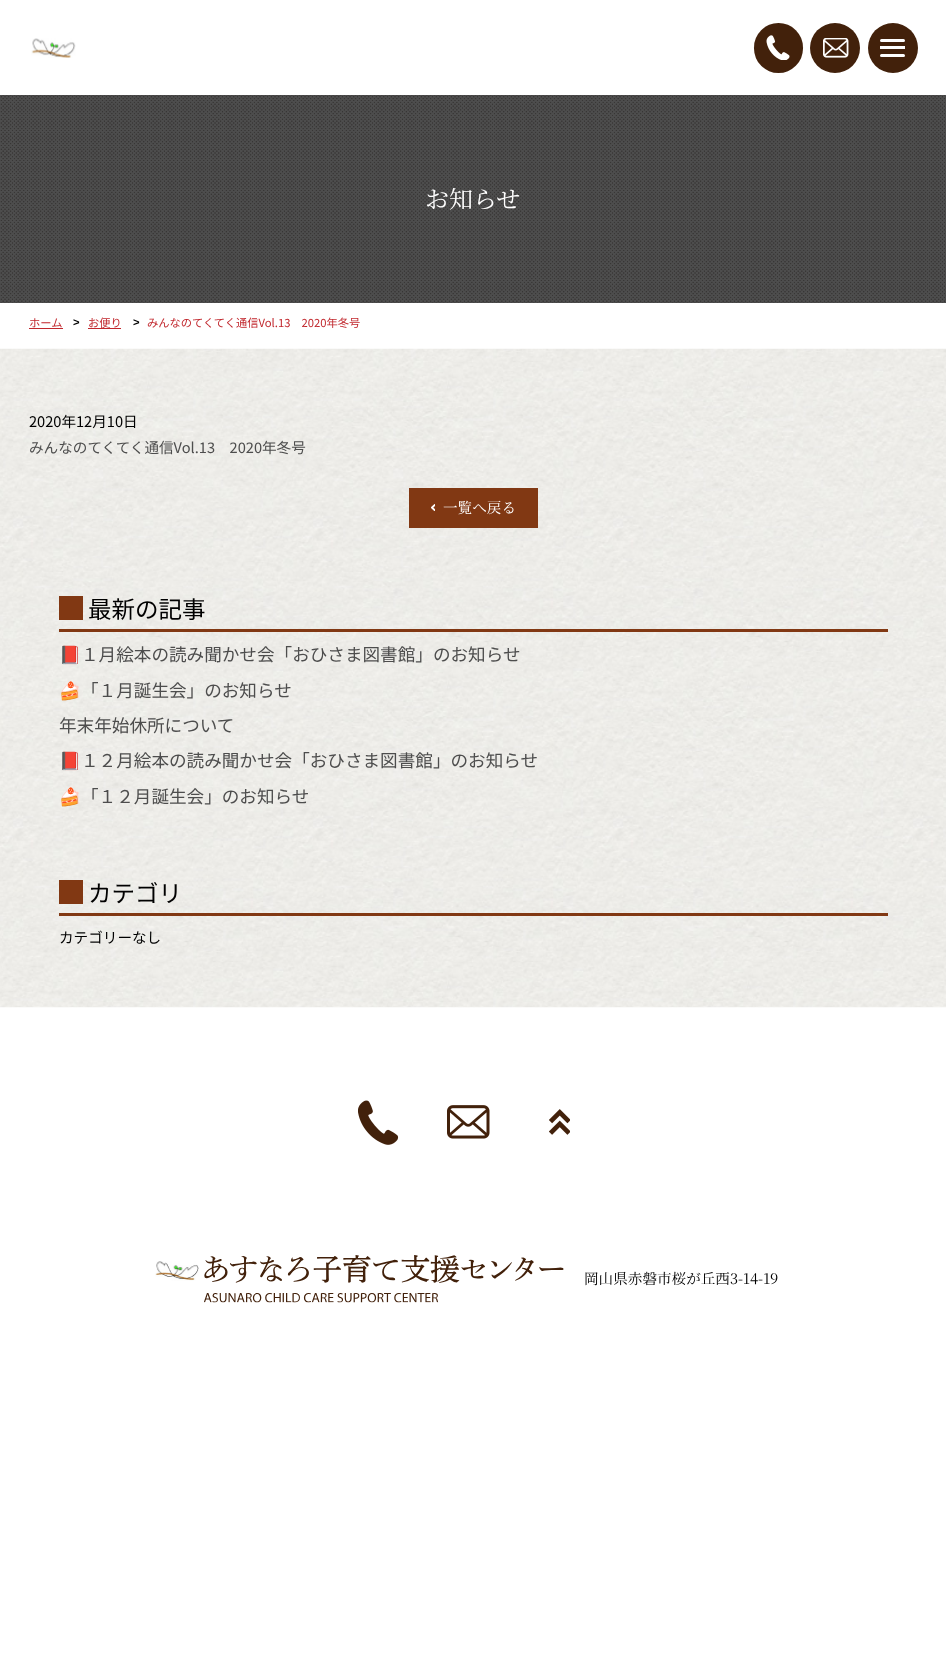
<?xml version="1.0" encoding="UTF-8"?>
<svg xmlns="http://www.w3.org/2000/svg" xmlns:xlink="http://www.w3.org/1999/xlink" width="946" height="1657">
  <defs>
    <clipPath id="clip1"><rect x="59" y="639" width="829" height="31" /></clipPath>
    <clipPath id="clip2"><rect x="59" y="674" width="829" height="32" /></clipPath>
    <clipPath id="clip3"><rect x="59" y="745" width="829" height="31" /></clipPath>
    <clipPath id="clip4"><rect x="59" y="780" width="829" height="31" /></clipPath>
  </defs>
  <rect width="100%" height="100%" fill="#ffffff" />
  <image x="31" y="38" width="45" height="20" xlink:href="image1.png" />
  <rect x="754" y="23" width="49" height="50" rx="24.5" fill="#42210b" />
  <image x="766" y="35" width="24" height="25" xlink:href="image2.png" />
  <circle cx="835" cy="48" r="25" fill="#42210b" />
  <image x="823" y="38" width="26" height="20" xlink:href="image3.png" />
  <circle cx="893" cy="48" r="25" fill="#42210b" />
  <rect x="880" y="46" width="25" height="3" fill="#ffffff" />
  <rect x="880" y="39" width="25" height="3" rx="1.5" fill="#ffffff" />
  <rect x="880" y="54" width="25" height="3" rx="1.5" fill="#ffffff" />
  <rect y="95" width="946" height="208" fill="#4d4d4d" />
  <image x="0" y="95" width="946" height="208" xlink:href="image4.png" />
  <rect x="29" y="328" width="34" height="1" fill="#c1272d" />
  <rect x="88" y="328" width="33" height="1" fill="#c1272d" />
  <image x="0" y="348" width="946" height="660" xlink:href="image5.png" />
  <rect x="409" y="488" width="129" height="40" fill="#813813" />
  <image x="431" y="504" width="4" height="7" xlink:href="image6.png" />
  <rect x="59" y="629" width="829" height="3" fill="#813813" />
  <rect x="59" y="596" width="24" height="24" fill="#813813" />
  <rect x="59" y="913" width="829" height="3" fill="#813813" />
  <rect x="59" y="880" width="24" height="24" fill="#813813" />
  <image x="358" y="1100" width="41" height="45" xlink:href="image7.png" />
  <image x="447" y="1105" width="43" height="34" xlink:href="image8.png" />
  <image x="549" y="1109" width="21" height="26" xlink:href="image9.png" />
  <image x="155" y="1261" width="44" height="20" xlink:href="image10.png" />
  <image x="204" y="1255" width="360" height="48" xlink:href="image11.png" />
  <text x="425" y="208" style="font-family: Noto Serif JP; font-size: 24px; fill: #ffffff">お知らせ</text>
  <text x="29" y="327" style="font-family: Noto Sans JP; font-size: 11.25px; fill: #c1272d">ホーム</text>
  <text x="73" y="326" style="font-family: Liberation Sans; font-size: 11.25px; font-weight: bold; fill: #000000">&gt;</text>
  <text x="88" y="327" style="font-family: Noto Sans JP; font-size: 11.25px; fill: #c1272d">お便り</text>
  <text x="133" y="326" style="font-family: Liberation Sans; font-size: 11.25px; font-weight: bold; fill: #000000">&gt;</text>
  <text x="147" y="327" style="font-family: Noto Sans JP; font-size: 11.25px; fill: #c1272d">みんなのてくてく通信Vol.13　2020年冬号</text>
  <text x="29" y="427" style="font-family: Noto Sans JP; font-size: 14.6px; fill: #000000">2020年12月10日</text>
  <text x="29" y="453" style="font-family: Noto Sans JP; font-size: 14.6px; fill: #4d4d4d">みんなのてくてく通信Vol.13　2020年冬号</text>
  <text x="443" y="513" style="font-family: Noto Serif JP; font-size: 14.6px; fill: #ffffff">一覧へ戻る</text>
  <text x="88" y="618" style="font-family: Noto Sans JP; font-size: 23.5px; fill: #000000">最新の記事</text>
  <g clip-path="url(#clip1)">
    <text x="59" y="661" style="font-family: Noto Color Emoji; font-size: 17.6px; fill: #4d4d4d">📕</text>
  </g>
  <text x="81" y="661" style="font-family: Noto Sans JP; font-size: 17.6px; fill: #4d4d4d">１月絵本の読み聞かせ会「おひさま図書館」のお知らせ</text>
  <g clip-path="url(#clip2)">
    <text x="59" y="697" style="font-family: Noto Color Emoji; font-size: 17.6px; fill: #4d4d4d">🍰</text>
  </g>
  <text x="81" y="697" style="font-family: Noto Sans JP; font-size: 17.6px; fill: #4d4d4d">「１月誕生会」のお知らせ</text>
  <text x="59" y="732" style="font-family: Noto Sans JP; font-size: 17.6px; fill: #4d4d4d">年末年始休所について</text>
  <g clip-path="url(#clip3)">
    <text x="59" y="767" style="font-family: Noto Color Emoji; font-size: 17.6px; fill: #4d4d4d">📕</text>
  </g>
  <text x="81" y="767" style="font-family: Noto Sans JP; font-size: 17.6px; fill: #4d4d4d">１２月絵本の読み聞かせ会「おひさま図書館」のお知らせ</text>
  <g clip-path="url(#clip4)">
    <text x="59" y="803" style="font-family: Noto Color Emoji; font-size: 17.6px; fill: #4d4d4d">🍰</text>
  </g>
  <text x="81" y="803" style="font-family: Noto Sans JP; font-size: 17.6px; fill: #4d4d4d">「１２月誕生会」のお知らせ</text>
  <text x="88" y="902" style="font-family: Noto Sans JP; font-size: 23.5px; fill: #000000">カテゴリ</text>
  <text x="59" y="943" style="font-family: Noto Sans JP; font-size: 14.6px; fill: #000000">カテゴリーなし</text>
  <text x="584" y="1284" style="font-family: Noto Serif JP; font-size: 14.6px; fill: #000000">岡山県赤磐市桜が丘西3-14-19</text>
</svg>
